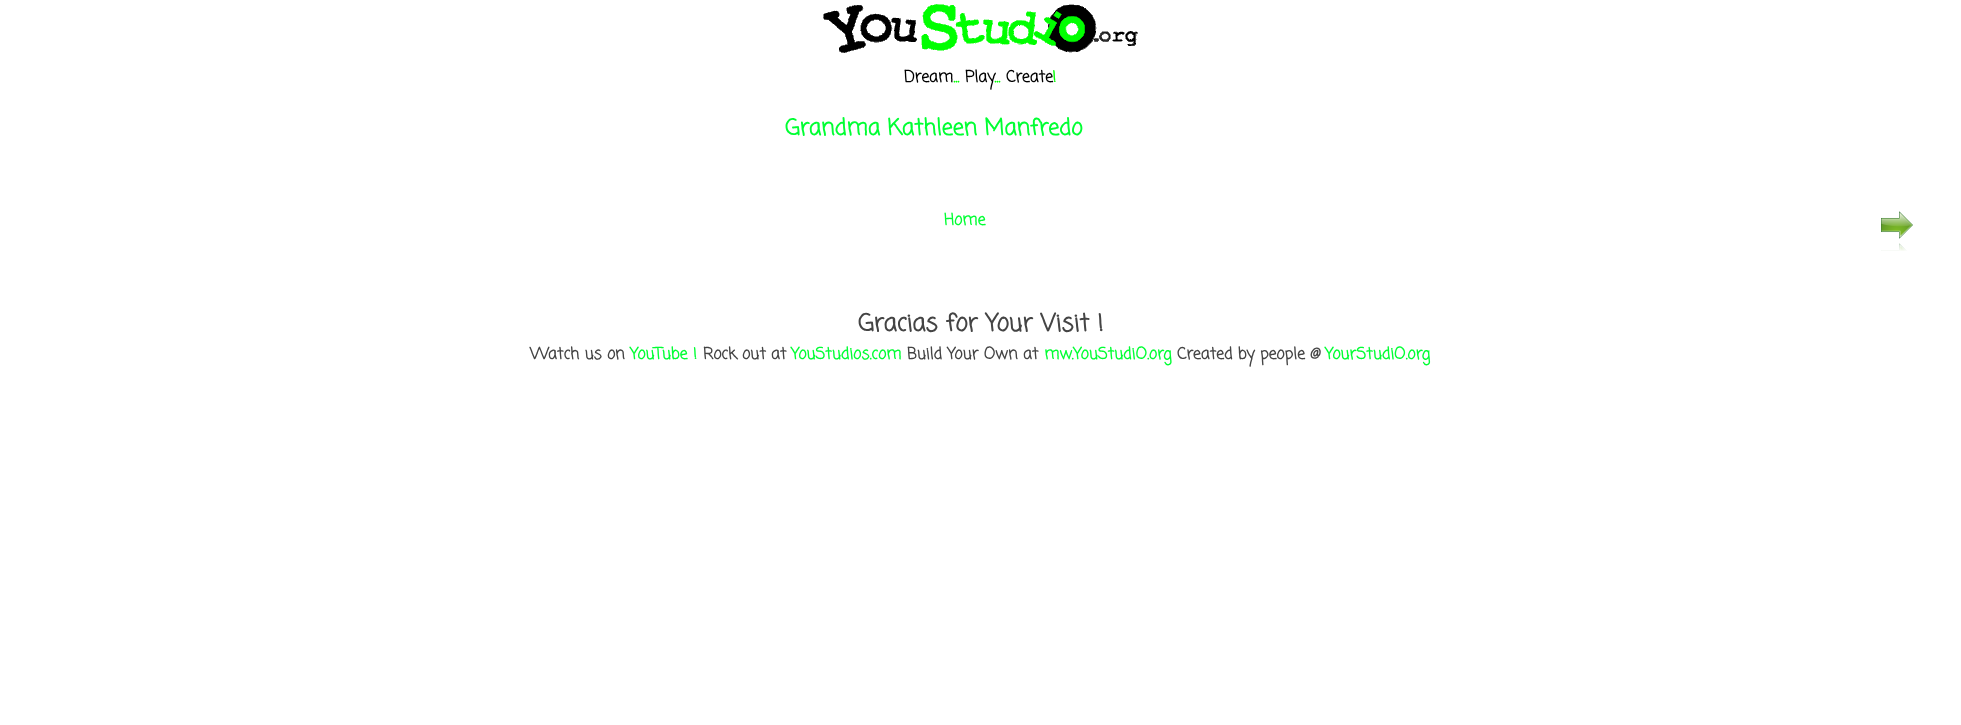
<?xml version="1.0" encoding="UTF-8"?>
<svg xmlns="http://www.w3.org/2000/svg" xmlns:xlink="http://www.w3.org/1999/xlink" width="1961" height="725">
  <rect width="100%" height="100%" fill="#ffffff" />
  <image x="823" y="4" width="315" height="49" xlink:href="image1.png" />
  <image x="1881" y="211" width="32" height="40" xlink:href="image2.png" />
  <text x="904" y="82" style="font-family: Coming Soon; font-size: 16px; font-weight: bold; fill: #000000">Dream</text>
  <text x="953" y="82" style="font-family: Coming Soon; font-size: 16px; font-weight: bold; fill: #00ff00">...</text>
  <text x="965" y="82" style="font-family: Coming Soon; font-size: 16px; font-weight: bold; fill: #000000">Play</text>
  <text x="994" y="82" style="font-family: Coming Soon; font-size: 16px; font-weight: bold; fill: #00ff00">...</text>
  <text x="1006" y="82" style="font-family: Coming Soon; font-size: 16px; font-weight: bold; fill: #000000">Create</text>
  <text x="1052" y="82" style="font-family: Coming Soon; font-size: 16px; font-weight: bold; fill: #00ff00">!</text>
  <text x="785" y="135" style="font-family: Coming Soon; font-size: 22.4px; font-weight: bold; fill: #00ff33">Grandma Kathleen Manfredo</text>
  <text x="944" y="225" style="font-family: Coming Soon; font-size: 16px; font-weight: bold; fill: #00ff33">Home</text>
  <text x="858" y="331" style="font-family: Coming Soon; font-size: 24px; font-weight: bold; fill: #444444">Gracias for Your Visit !</text>
  <text x="530" y="359" style="font-family: Coming Soon; font-size: 16px; font-weight: bold; fill: #444444">Watch us on</text>
  <text x="630" y="359" style="font-family: Coming Soon; font-size: 16px; font-weight: bold; fill: #00ff33">YouTube !</text>
  <text x="703" y="359" style="font-family: Coming Soon; font-size: 16px; font-weight: bold; fill: #444444">Rock out at</text>
  <text x="791" y="359" style="font-family: Coming Soon; font-size: 16px; font-weight: bold; fill: #00ff33">YouStudios.com</text>
  <text x="907" y="359" style="font-family: Coming Soon; font-size: 16px; font-weight: bold; fill: #444444">Build Your Own at</text>
  <text x="1044" y="359" style="font-family: Coming Soon; font-size: 16px; font-weight: bold; fill: #00ff33">mw.YouStudiO.org</text>
  <text x="1177" y="359" style="font-family: Coming Soon; font-size: 16px; font-weight: bold; fill: #444444">Created by people @</text>
  <text x="1325" y="359" style="font-family: Coming Soon; font-size: 16px; font-weight: bold; fill: #00ff33">YourStudiO.org</text>
</svg>
